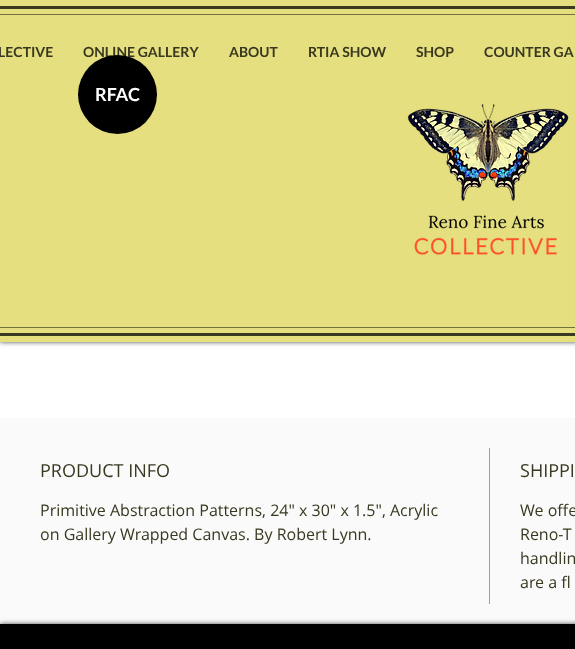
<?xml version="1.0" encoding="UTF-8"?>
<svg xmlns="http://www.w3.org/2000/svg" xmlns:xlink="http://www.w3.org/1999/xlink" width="575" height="649">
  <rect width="100%" height="100%" fill="#ffffff" />
  <rect width="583" height="342" fill="#000000" fill-opacity="0.7" filter="blur(2.5px)" />
  <rect width="575" height="342" fill="#e5df7f" />
  <rect y="6" width="575" height="3" fill="#393820" />
  <rect y="333" width="575" height="3" fill="#393820" />
  <rect y="14" width="575" height="1" fill="#737040" />
  <rect y="327" width="575" height="1" fill="#737040" />
  <image x="407" y="104" width="162" height="151" xlink:href="image1.png" />
  <rect y="418" width="575" height="206" fill="#fafafa" />
  <rect x="489" y="448" width="1" height="156" fill="#aca75f" />
  <rect y="624" width="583" height="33" fill="#000000" fill-opacity="0.7" filter="blur(2.5px)" />
  <rect y="624" width="575" height="25" fill="#000000" />
  <text x="-2" y="57" style="font-family: Lato; font-size: 14px; font-weight: bold; fill: #393820">LECTIVE</text>
  <text x="83" y="57" style="font-family: Lato; font-size: 14px; font-weight: bold; fill: #393820">ONLINE GALLERY</text>
  <text x="229" y="57" style="font-family: Lato; font-size: 14px; font-weight: bold; fill: #393820">ABOUT</text>
  <text x="308" y="57" style="font-family: Lato; font-size: 14px; font-weight: bold; fill: #393820">RTIA SHOW</text>
  <text x="416" y="57" style="font-family: Lato; font-size: 14px; font-weight: bold; fill: #393820">SHOP</text>
  <text x="484" y="57" style="font-family: Lato; font-size: 14px; font-weight: bold; fill: #393820">COUNTER GA</text>
  <circle cx="117.5" cy="94.5" r="39.5" fill="#000000" />
  <text x="95" y="101" style="font-family: Lato; font-size: 18px; font-weight: bold; fill: #ffffff">RFAC</text>
  <text x="40" y="477" style="font-family: Open Sans; font-size: 18px; fill: #393820">PRODUCT INFO</text>
  <text x="40" y="516" style="font-family: Open Sans; font-size: 16px; fill: #393820">Primitive Abstraction Patterns, 24" x 30" x 1.5", Acrylic</text>
  <text x="40" y="540" style="font-family: Open Sans; font-size: 16px; fill: #393820">on Gallery Wrapped Canvas. By Robert Lynn.</text>
  <text x="520" y="477" style="font-family: Open Sans; font-size: 18px; fill: #393820">SHIPPI</text>
  <text x="520" y="516" style="font-family: Open Sans; font-size: 16px; fill: #393820">We offe</text>
  <text x="520" y="540" style="font-family: Open Sans; font-size: 16px; fill: #393820">Reno-T</text>
  <text x="520" y="564" style="font-family: Open Sans; font-size: 16px; fill: #393820">handlin</text>
  <text x="520" y="588" style="font-family: Open Sans; font-size: 16px; fill: #393820">are a fl</text>
</svg>
